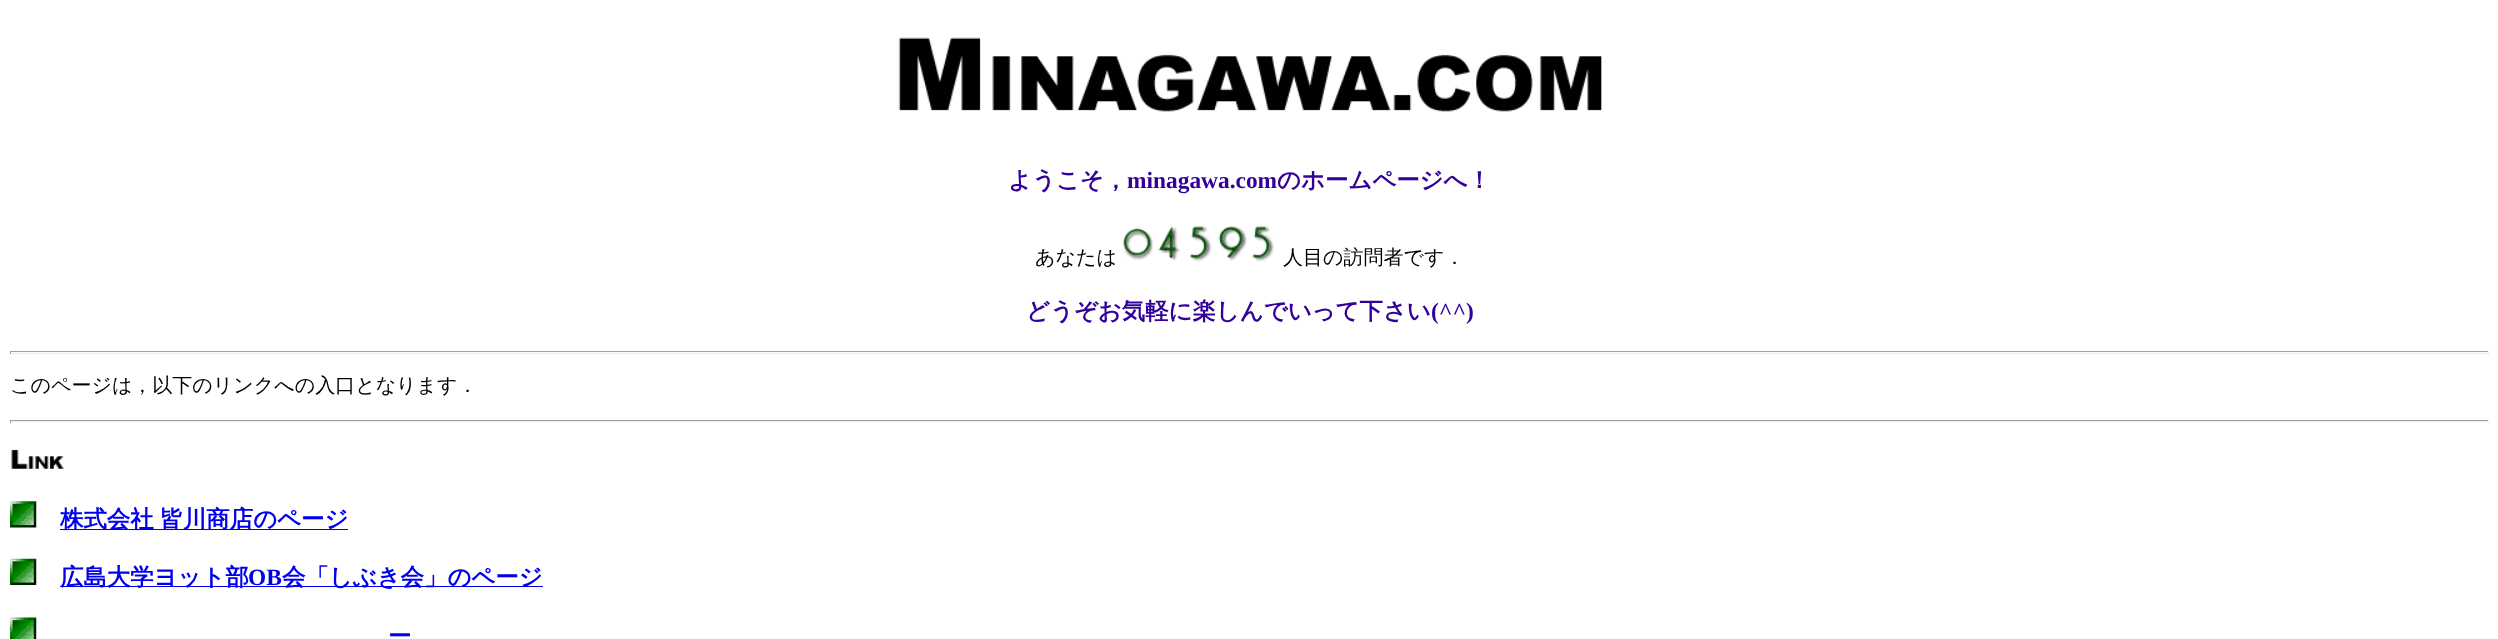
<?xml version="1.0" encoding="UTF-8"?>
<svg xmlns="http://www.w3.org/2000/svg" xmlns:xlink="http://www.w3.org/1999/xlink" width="2498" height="639">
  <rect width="100%" height="100%" fill="#ffffff" />
  <image x="898" y="37" width="704" height="75" xlink:href="image1.png" />
  <image x="1122" y="226" width="153" height="37" xlink:href="image2.png" />
  <rect x="10" y="351" width="2479" height="1" fill="#9f9f9f" />
  <rect x="2488" y="351" width="1" height="3" fill="#eeeeee" />
  <rect x="10" y="353" width="2479" height="1" fill="#eeeeee" />
  <rect x="10" y="351" width="1" height="3" fill="#9f9f9f" />
  <rect x="10" y="420" width="2479" height="1" fill="#9f9f9f" />
  <rect x="2488" y="420" width="1" height="3" fill="#eeeeee" />
  <rect x="10" y="421" width="2479" height="1" fill="#eeeeee" />
  <rect x="10" y="420" width="1" height="3" fill="#9f9f9f" />
  <image x="11" y="449" width="53" height="20" xlink:href="image3.png" />
  <image x="10" y="501" width="27" height="27" xlink:href="image4.png" />
  <rect x="60" y="529" width="288" height="1" fill="#0000ee" />
  <image x="10" y="558" width="27" height="27" xlink:href="image5.png" />
  <rect x="60" y="586" width="483" height="1" fill="#0000ee" />
  <image x="10" y="617" width="27" height="22" xlink:href="image6.png" />
  <text x="1008" y="188" style="font-family: WenQuanYi Zen Hei; font-size: 23.4px; font-weight: bold; fill: #330099">ようこそ，</text>
  <text x="1127" y="188" style="font-family: Liberation Serif; font-size: 23.4px; font-weight: bold; fill: #330099">minagawa.com</text>
  <text x="1277" y="188" style="font-family: WenQuanYi Zen Hei; font-size: 23.4px; font-weight: bold; fill: #330099">のホームページへ！</text>
  <text x="1035" y="264" style="font-family: WenQuanYi Zen Hei; font-size: 20px; font-weight: 500; fill: #000000">あなたは</text>
  <text x="1283" y="264" style="font-family: WenQuanYi Zen Hei; font-size: 20px; font-weight: 500; fill: #000000">人目の訪問者です．</text>
  <text x="1026" y="319" style="font-family: WenQuanYi Zen Hei; font-size: 23.4px; font-weight: bold; fill: #330099">どうぞお気軽に楽しんでいって下さい</text>
  <text x="1431" y="319" style="font-family: Liberation Serif; font-size: 23.4px; font-weight: bold; fill: #330099">(^^)</text>
  <text x="10" y="392" style="font-family: WenQuanYi Zen Hei; font-size: 20px; font-weight: 500; fill: #000000">このページは，以下のリンクへの入口となります．</text>
  <text x="60" y="527" word-spacing="-1" style="font-family: WenQuanYi Zen Hei; font-size: 23.4px; font-weight: bold; fill: #0000ee">株式会社 皆川商店のページ</text>
  <text x="60" y="585" style="font-family: WenQuanYi Zen Hei; font-size: 23.4px; font-weight: bold; fill: #0000ee">広島大学ヨット部</text>
  <text x="248" y="585" style="font-family: Liberation Serif; font-size: 23.4px; font-weight: bold; fill: #0000ee">OB</text>
  <text x="282" y="585" style="font-family: WenQuanYi Zen Hei; font-size: 23.4px; font-weight: bold; fill: #0000ee">会「しぶき会」のページ</text>
  <text x="388" y="644" style="font-family: WenQuanYi Zen Hei; font-size: 23.4px; font-weight: bold; fill: #0000ee">ー</text>
</svg>
